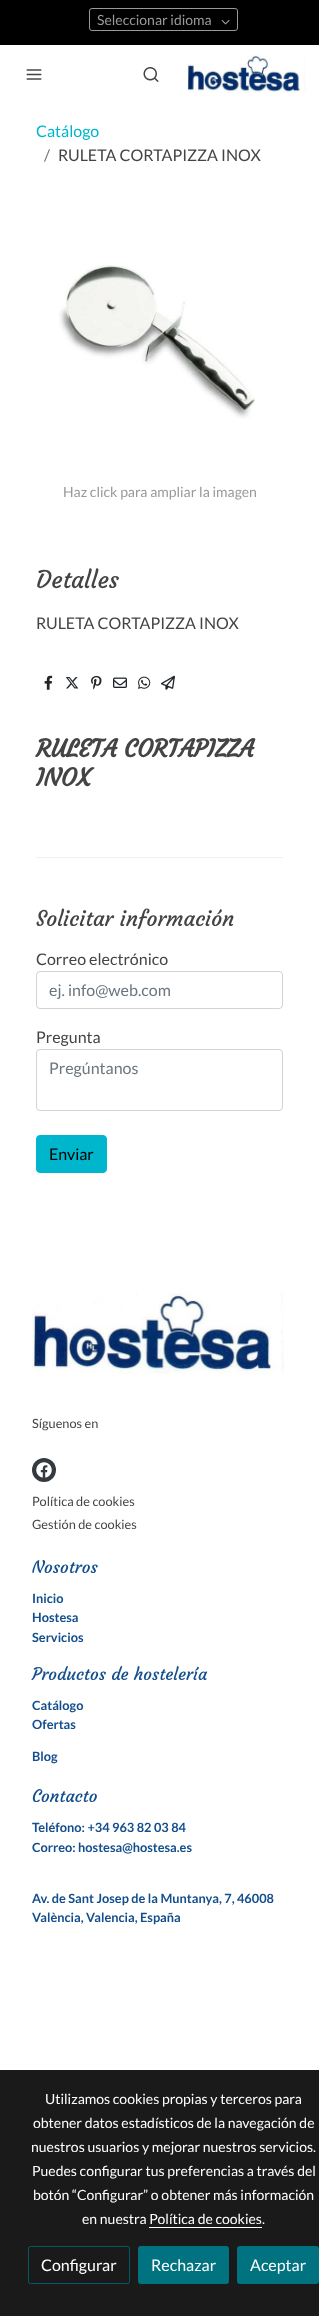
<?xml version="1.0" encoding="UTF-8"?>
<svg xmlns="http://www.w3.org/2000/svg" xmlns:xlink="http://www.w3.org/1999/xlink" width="319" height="2316">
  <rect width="100%" height="100%" fill="#ffffff" />
  <rect width="319" height="45" fill="#000000" />
  <rect x="89.5" y="8.5" width="148" height="22" rx="2.5" fill="none" stroke="#999999" />
  <image x="221" y="20" width="9" height="5" xlink:href="image1.png" />
  <image x="26" y="69" width="16" height="11" xlink:href="image2.png" />
  <image x="143" y="67" width="16" height="15" xlink:href="image3.png" />
  <image x="187" y="55" width="119" height="38" xlink:href="image4.png" />
  <image x="59" y="265" width="196" height="154" xlink:href="image5.png" />
  <image x="44" y="675" width="9" height="15" xlink:href="image6.png" />
  <image x="65" y="677" width="14" height="12" xlink:href="image7.png" />
  <image x="91" y="675" width="11" height="15" xlink:href="image8.png" />
  <image x="113" y="677" width="14" height="11" xlink:href="image9.png" />
  <image x="138" y="676" width="13" height="13" xlink:href="image10.png" />
  <image x="161" y="675" width="14" height="15" xlink:href="image11.png" />
  <rect x="36" y="857" width="247" height="1" fill="#eff0f2" />
  <rect x="36.5" y="971.5" width="246" height="37" rx="3.5" fill="none" stroke="#ced4da" />
  <rect x="36.5" y="1049.5" width="246" height="61" rx="3.5" fill="none" stroke="#ced4da" />
  <rect x="36.5" y="1135.5" width="70" height="37" rx="3.5" fill="#00b6cc" stroke="#00b6cc" />
  <image x="32" y="1293" width="252" height="81" xlink:href="image12.png" />
  <circle cx="44" cy="1470" r="12" fill="#343a40" />
  <image x="36" y="1462" width="16" height="16" xlink:href="image13.png" />
  <rect y="2070" width="319" height="246" fill="#1a1a1a" />
  <rect x="149" y="2227" width="113" height="1" fill="#ffffff" />
  <rect x="28.5" y="2246.5" width="101" height="37" rx="2" fill="none" stroke="#005b66" />
  <rect x="138.5" y="2246.5" width="90" height="37" rx="2" fill="#007280" stroke="#007280" />
  <rect x="237.5" y="2246.5" width="81" height="37" rx="2" fill="#007280" stroke="#007280" />
  <text x="97" y="25" style="font-family: Lato; font-size: 14px; fill: #999999">Seleccionar idioma</text>
  <text x="36" y="137" style="font-family: Lato; font-size: 16px; fill: #00b6cc">Catálogo</text>
  <text x="44" y="161" style="font-family: Lato; font-size: 16px; fill: #6c757d">/</text>
  <text x="58" y="161" style="font-family: Lato; font-size: 16px; fill: #444444">RULETA CORTAPIZZA INOX</text>
  <text x="63" y="497" style="font-family: Lato; font-size: 14px; fill: #999999">Haz click para ampliar la imagen</text>
  <text x="36" y="588" style="font-family: Courgette; font-size: 24px; fill: #444444">Detalles</text>
  <text x="36" y="629" style="font-family: Lato; font-size: 16px; fill: #444444">RULETA CORTAPIZZA INOX</text>
  <text x="36" y="757" style="font-family: Courgette; font-size: 24px; font-weight: bold; fill: #444444">RULETA CORTAPIZZA</text>
  <text x="36" y="786" style="font-family: Courgette; font-size: 24px; font-weight: bold; fill: #444444">INOX</text>
  <text x="36" y="926" style="font-family: Courgette; font-size: 21.4px; fill: #444444">Solicitar información</text>
  <text x="36" y="965" style="font-family: Lato; font-size: 16px; fill: #444444">Correo electrónico</text>
  <text x="49" y="996" style="font-family: Lato; font-size: 16px; fill: #6c757d">ej. info@web.com</text>
  <text x="36" y="1043" style="font-family: Lato; font-size: 16px; fill: #444444">Pregunta</text>
  <text x="49" y="1074" style="font-family: Lato; font-size: 16px; fill: #6c757d">Pregúntanos</text>
  <text x="49" y="1160" style="font-family: Lato; font-size: 16px; fill: #000000">Enviar</text>
  <text x="32" y="1428" style="font-family: Lato; font-size: 12.75px; fill: #444444">Síguenos en</text>
  <text x="32" y="1506" style="font-family: Lato; font-size: 12.75px; fill: #444444">Política de cookies</text>
  <text x="32" y="1529" style="font-family: Lato; font-size: 12.75px; fill: #444444">Gestión de cookies</text>
  <text x="32" y="1573" style="font-family: Courgette; font-size: 17px; fill: #134e8d">Nosotros</text>
  <text x="32" y="1603" style="font-family: Lato; font-size: 12.75px; font-weight: bold; fill: #134e8d">Inicio</text>
  <text x="32" y="1622" style="font-family: Lato; font-size: 12.75px; font-weight: bold; fill: #134e8d">Hostesa</text>
  <text x="32" y="1642" style="font-family: Lato; font-size: 12.75px; font-weight: bold; fill: #134e8d">Servicios</text>
  <text x="32" y="1680" style="font-family: Courgette; font-size: 17px; fill: #134e8d">Productos de hostelería</text>
  <text x="32" y="1710" style="font-family: Lato; font-size: 12.75px; font-weight: bold; fill: #134e8d">Catálogo</text>
  <text x="32" y="1729" style="font-family: Lato; font-size: 12.75px; font-weight: bold; fill: #134e8d">Ofertas</text>
  <text x="32" y="1761" style="font-family: Lato; font-size: 12.75px; font-weight: bold; fill: #134e8d">Blog</text>
  <text x="32" y="1802" style="font-family: Courgette; font-size: 17px; fill: #134e8d">Contacto</text>
  <text x="32" y="1832" style="font-family: Lato; font-size: 12.75px; font-weight: bold; fill: #134e8d">Teléfono: +34 963 82 03 84</text>
  <text x="32" y="1852" style="font-family: Lato; font-size: 12.75px; font-weight: bold; fill: #134e8d">Correo: hostesa@hostesa.es</text>
  <text x="32" y="1903" style="font-family: Lato; font-size: 12.75px; font-weight: bold; fill: #134e8d">Av. de Sant Josep de la Muntanya, 7, 46008</text>
  <text x="32" y="1922" style="font-family: Lato; font-size: 12.75px; font-weight: bold; fill: #134e8d">València, Valencia, España</text>
  <text x="45" y="2104" style="font-family: Lato; font-size: 14px; fill: #ffffff">Utilizamos cookies propias y terceros para</text>
  <text x="33" y="2128" style="font-family: Lato; font-size: 14px; fill: #ffffff">obtener datos estadísticos de la navegación de</text>
  <text x="31" y="2152" style="font-family: Lato; font-size: 14px; fill: #ffffff">nuestros usuarios y mejorar nuestros servicios.</text>
  <text x="32" y="2176" style="font-family: Lato; font-size: 14px; fill: #ffffff">Puedes configurar tus preferencias a través del</text>
  <text x="33" y="2200" style="font-family: Lato; font-size: 14px; fill: #ffffff">botón “Configurar” o obtener más información</text>
  <text x="82" y="2224" style="font-family: Lato; font-size: 14px; fill: #ffffff">en nuestra Política de cookies.</text>
  <text x="41" y="2271" style="font-family: Lato; font-size: 16px; fill: #ffffff">Configurar</text>
  <text x="151" y="2271" style="font-family: Lato; font-size: 16px; fill: #ffffff">Rechazar</text>
  <text x="250" y="2271" style="font-family: Lato; font-size: 16px; fill: #ffffff">Aceptar</text>
</svg>
